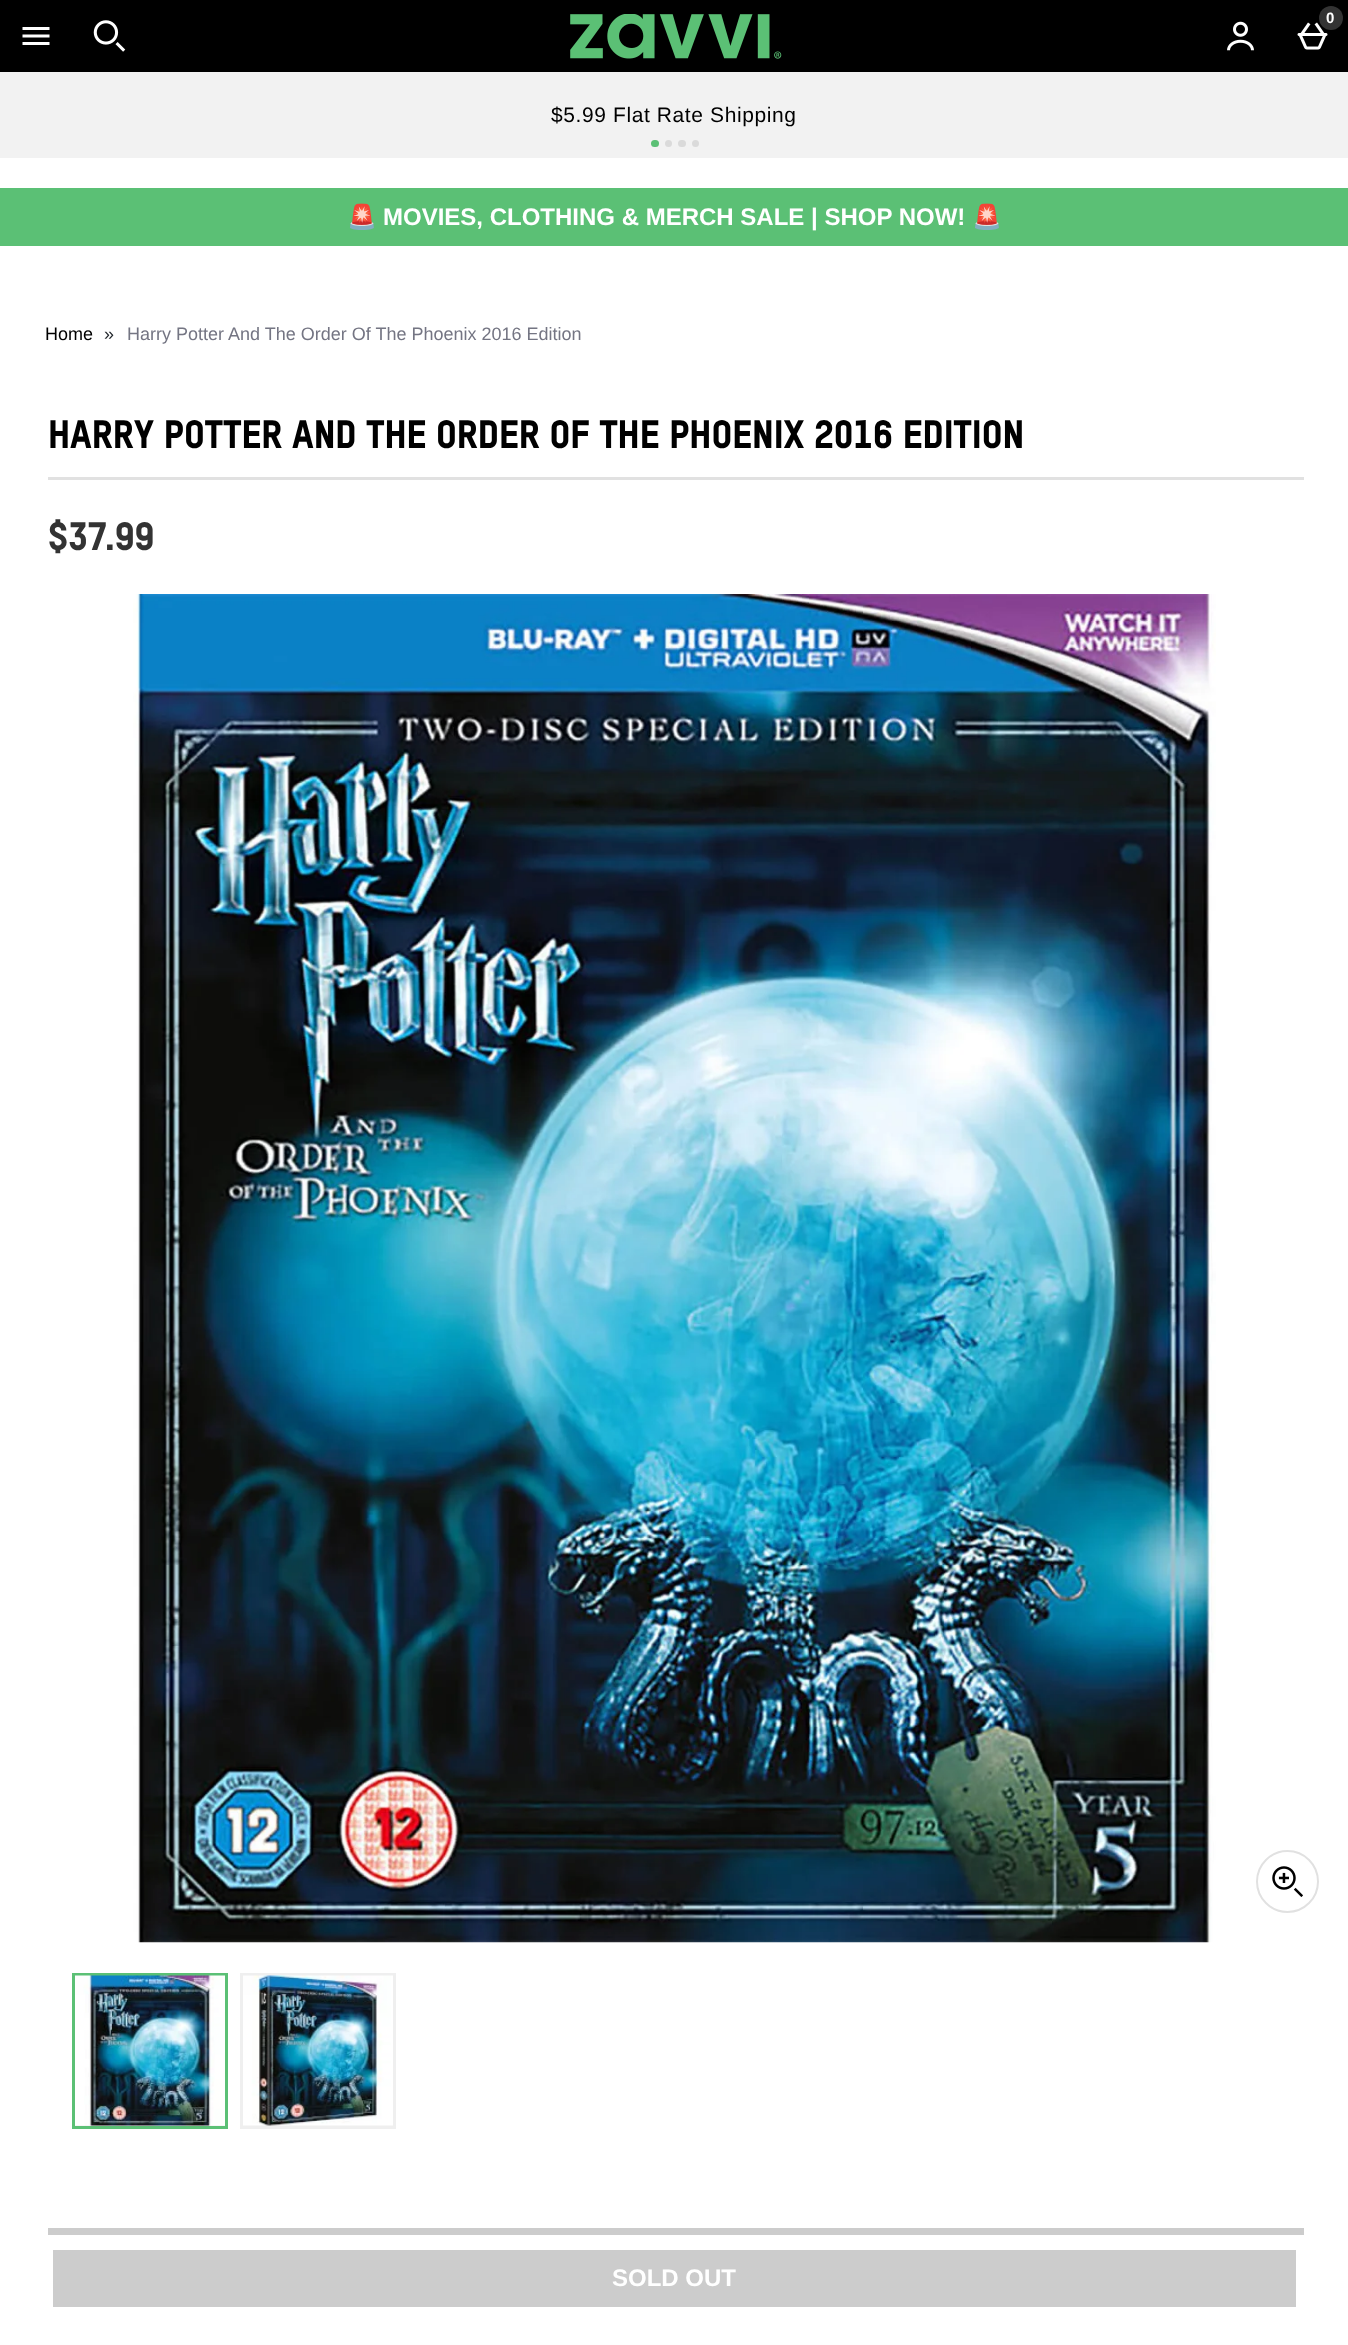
<?xml version="1.0" encoding="UTF-8"?>
<svg xmlns="http://www.w3.org/2000/svg" xmlns:xlink="http://www.w3.org/1999/xlink" width="1348" height="2345">
  <rect width="100%" height="100%" fill="#ffffff" />
  <rect width="1348" height="72" fill="#000000" />
  <image x="22" y="27" width="28" height="18" xlink:href="image1.png" />
  <image x="93" y="20" width="33" height="32" xlink:href="image2.png" />
  <image x="570" y="14" width="212" height="45" xlink:href="image3.png" />
  <image x="1227" y="21" width="27" height="30" xlink:href="image4.png" />
  <image x="1297" y="22" width="31" height="28" xlink:href="image5.png" />
  <circle cx="1331" cy="18" r="12" fill="#333333" />
  <rect y="72" width="1348" height="86" fill="#f2f2f2" />
  <rect x="651" y="140" width="8" height="7" rx="3.5" fill="#5bc075" />
  <circle cx="668.5" cy="143.5" r="3.5" fill="#dadada" />
  <rect x="678" y="140" width="8" height="7" rx="3.5" fill="#dadada" />
  <circle cx="695.5" cy="143.5" r="3.5" fill="#dadada" />
  <rect y="188" width="1348" height="58" fill="#5bc075" />
  <rect x="48" y="477" width="1256" height="3" fill="#e1e1e1" />
  <image x="133" y="594" width="1083" height="1349" xlink:href="image6.png" />
  <circle cx="1287.5" cy="1881.5" r="30.5" fill="none" stroke="#e1e1e1" stroke-width="2" />
  <image x="1272" y="1866" width="31" height="31" xlink:href="image7.png" />
  <rect x="75" y="2125" width="150" height="1" fill="#efefef" />
  <rect x="73.5" y="1974.5" width="153" height="153" fill="none" stroke="#5bc075" stroke-width="3" />
  <image x="75" y="1975" width="150" height="151" xlink:href="image8.png" />
  <rect x="240" y="1973" width="156" height="156" fill="#efefef" />
  <image x="243" y="1975" width="150" height="151" xlink:href="image9.png" />
  <rect x="48" y="2228" width="1256" height="7" fill="#cccccc" />
  <rect x="53" y="2250" width="1243" height="57" fill="#cccccc" />
  <text x="1326" y="23" style="font-family: Liberation Sans; font-size: 15px; font-weight: bold; fill: #ffffff">0</text>
  <text x="551" y="122" style="font-family: Liberation Sans; font-size: 21px; letter-spacing: 0.6px; fill: #000000">$5.99 Flat Rate Shipping</text>
  <text x="347" y="225" style="font-family: Noto Color Emoji; font-size: 24px; font-weight: bold; fill: #ffffff">🚨</text>
  <text x="383" y="225" style="font-family: Liberation Sans; font-size: 24px; font-weight: bold; fill: #ffffff">MOVIES, CLOTHING &amp; MERCH SALE | SHOP NOW!</text>
  <text x="972" y="225" style="font-family: Noto Color Emoji; font-size: 24px; font-weight: bold; fill: #ffffff">🚨</text>
  <text x="45" y="340" style="font-family: Liberation Sans; font-size: 18px; fill: #000000">Home</text>
  <text x="104" y="340" style="font-family: Liberation Sans; font-size: 18px; fill: #22272c">»</text>
  <text x="127" y="340" style="font-family: Liberation Sans; font-size: 18px; fill: #747583">Harry Potter And The Order Of The Phoenix 2016 Edition</text>
  <text x="48" y="448" style="font-family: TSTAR; font-size: 39px; font-weight: 900; fill: #000000">HARRY POTTER AND THE ORDER OF THE PHOENIX 2016 EDITION</text>
  <text x="48" y="550" style="font-family: TSTAR; font-size: 39px; font-weight: 900; fill: #333333">$37.99</text>
  <text x="612" y="2286" style="font-family: Liberation Sans; font-size: 24px; font-weight: bold; fill: #ffffff">SOLD OUT</text>
</svg>
